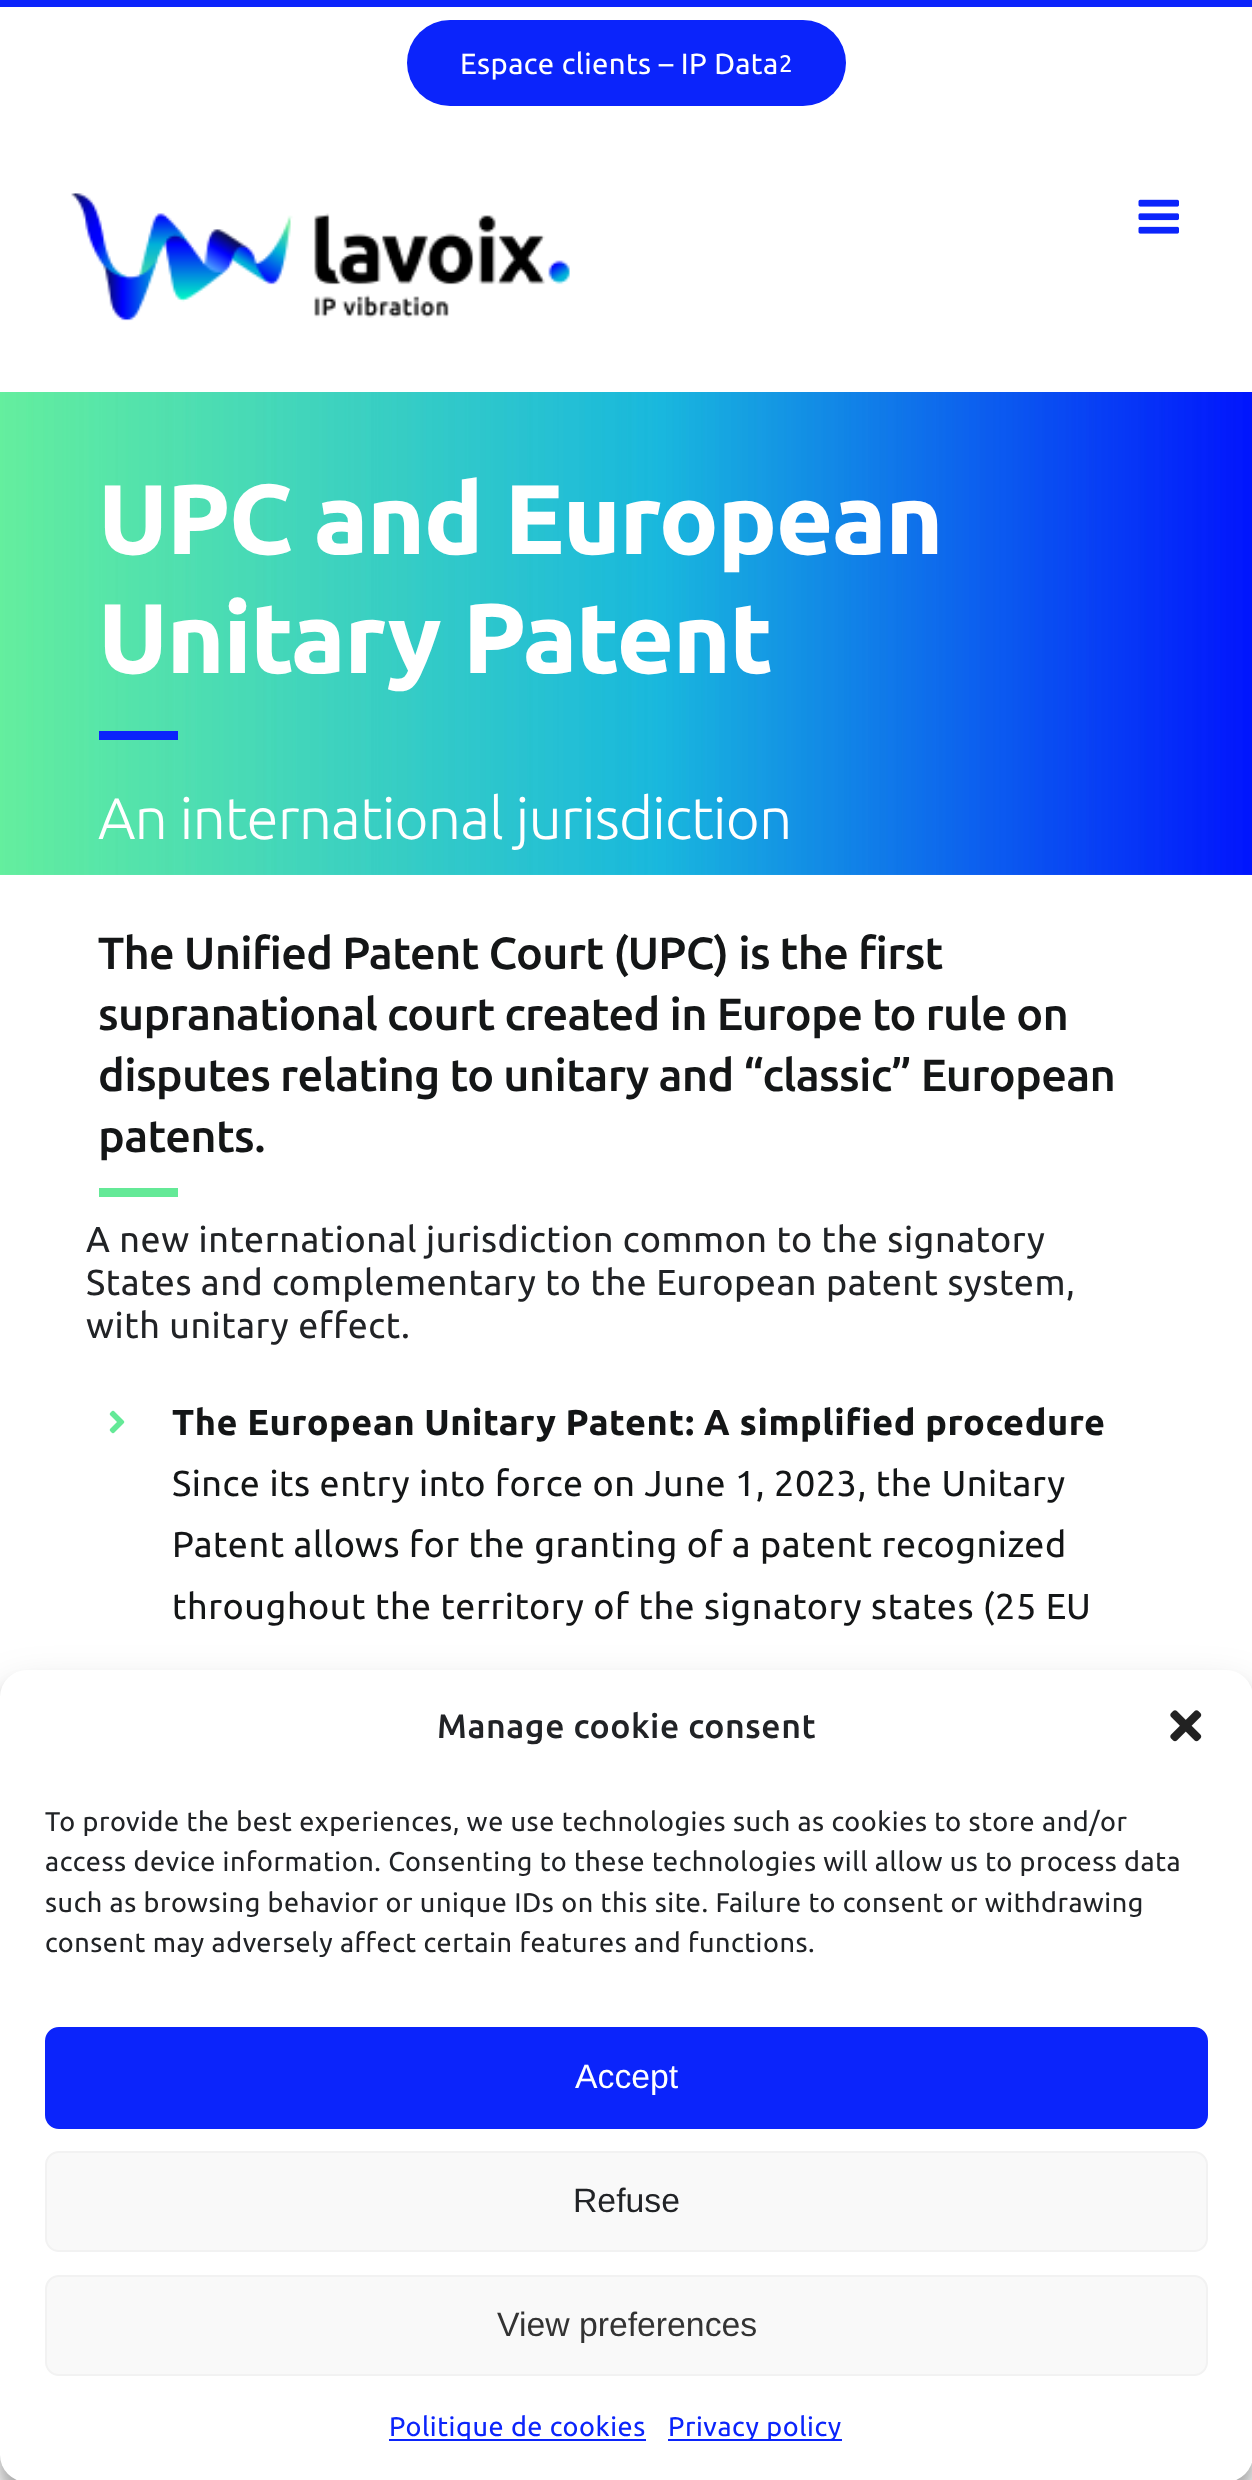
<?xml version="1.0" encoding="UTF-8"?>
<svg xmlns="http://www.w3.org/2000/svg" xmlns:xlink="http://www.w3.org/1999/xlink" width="1252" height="2480">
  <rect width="100%" height="100%" fill="#ffffff" />
  <rect width="1252" height="7" fill="#0b24fb" />
  <rect x="407" y="20" width="439" height="86" rx="43" fill="#0b24fb" />
  <image x="71" y="193" width="499" height="128" xlink:href="image1.png" />
  <image x="1138" y="199" width="41" height="35" xlink:href="image2.png" />
  <image x="0" y="392" width="1252" height="483" xlink:href="image3.png" />
  <rect x="99" y="731" width="79" height="9" fill="#0b24fb" />
  <rect x="99" y="1188" width="79" height="9" fill="#64e997" />
  <image x="109" y="1410" width="16" height="24" xlink:href="image4.png" />
  <rect y="1683" width="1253" height="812" rx="27" fill="#000000" fill-opacity="0.23" filter="blur(7px)" />
  <rect y="1692" width="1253" height="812" rx="27" fill="#000000" fill-opacity="0.19" filter="blur(22.5px)" />
  <rect y="1670" width="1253" height="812" rx="27" fill="#ffffff" />
  <image x="1170" y="1710" width="32" height="32" xlink:href="image5.png" />
  <rect x="46" y="2028" width="1161" height="100" rx="13" fill="#0b24fb" stroke="#0b24fb" stroke-width="2" />
  <rect x="46" y="2152" width="1161" height="99" rx="13" fill="#f9f9f9" stroke="#f2f2f2" stroke-width="2" />
  <rect x="46" y="2276" width="1161" height="99" rx="13" fill="#f9f9f9" stroke="#f2f2f2" stroke-width="2" />
  <rect x="389" y="2439" width="257" height="2" fill="#0b24fb" />
  <rect x="668" y="2439" width="174" height="2" fill="#0b24fb" />
  <text x="460" y="74" style="font-family: Ubuntu; font-size: 29.25px; letter-spacing: 0.4px; fill: #ffffff">Espace clients – IP Data</text>
  <text x="779" y="72" style="font-family: Ubuntu; font-size: 24px; letter-spacing: 0.4px; fill: #ffffff">2</text>
  <text x="98" y="554" style="font-family: Ubuntu; font-size: 99px; font-weight: bold; letter-spacing: -1.5px; fill: #ffffff">UPC and European</text>
  <text x="98" y="673" style="font-family: Ubuntu; font-size: 99px; font-weight: bold; letter-spacing: -1.5px; fill: #ffffff">Unitary Patent</text>
  <text x="98" y="839" style="font-family: Ubuntu; font-size: 58.5px; font-weight: 300; letter-spacing: -0.9px; fill: #ffffff">An international jurisdiction</text>
  <text x="98" y="969" style="font-family: Ubuntu; font-size: 45px; font-weight: 500; letter-spacing: -0.67px; fill: #141617">The Unified Patent Court (UPC) is the first</text>
  <text x="98" y="1030" style="font-family: Ubuntu; font-size: 45px; font-weight: 500; letter-spacing: -0.67px; fill: #141617">supranational court created in Europe to rule on</text>
  <text x="98" y="1091" style="font-family: Ubuntu; font-size: 45px; font-weight: 500; letter-spacing: -0.67px; fill: #141617">disputes relating to unitary and “classic” European</text>
  <text x="98" y="1152" style="font-family: Ubuntu; font-size: 45px; font-weight: 500; letter-spacing: -0.67px; fill: #141617">patents.</text>
  <text x="86" y="1252" style="font-family: Ubuntu; font-size: 36px; letter-spacing: 0.55px; fill: #212326">A new international jurisdiction common to the signatory</text>
  <text x="86" y="1295" style="font-family: Ubuntu; font-size: 36px; letter-spacing: 0.55px; fill: #212326">States and complementary to the European patent system,</text>
  <text x="86" y="1338" style="font-family: Ubuntu; font-size: 36px; letter-spacing: 0.55px; fill: #212326">with unitary effect.</text>
  <text x="172" y="1435" style="font-family: Ubuntu; font-size: 36px; font-weight: bold; letter-spacing: 0.55px; fill: #141617">The European Unitary Patent: A simplified procedure</text>
  <text x="172" y="1496" style="font-family: Ubuntu; font-size: 36px; letter-spacing: 0.55px; fill: #141617">Since its entry into force on June 1, 2023, the Unitary</text>
  <text x="172" y="1557" style="font-family: Ubuntu; font-size: 36px; letter-spacing: 0.55px; fill: #141617">Patent allows for the granting of a patent recognized</text>
  <text x="172" y="1619" style="font-family: Ubuntu; font-size: 36px; letter-spacing: 0.55px; fill: #141617">throughout the territory of the signatory states (25 EU</text>
  <text x="437" y="1738" style="font-family: Ubuntu; font-size: 33.75px; font-weight: 500; letter-spacing: 0.55px; fill: #212326">Manage cookie consent</text>
  <text x="45" y="1831" style="font-family: Ubuntu; font-size: 27px; letter-spacing: 0.55px; fill: #212326">To provide the best experiences, we use technologies such as cookies to store and/or</text>
  <text x="45" y="1871" style="font-family: Ubuntu; font-size: 27px; letter-spacing: 0.55px; fill: #212326">access device information. Consenting to these technologies will allow us to process data</text>
  <text x="45" y="1912" style="font-family: Ubuntu; font-size: 27px; letter-spacing: 0.55px; fill: #212326">such as browsing behavior or unique IDs on this site. Failure to consent or withdrawing</text>
  <text x="45" y="1952" style="font-family: Ubuntu; font-size: 27px; letter-spacing: 0.55px; fill: #212326">consent may adversely affect certain features and functions.</text>
  <text x="575" y="2088" style="font-family: Liberation Sans; font-size: 33.75px; fill: #ffffff">Accept</text>
  <text x="573" y="2212" style="font-family: Liberation Sans; font-size: 33.75px; fill: #212326">Refuse</text>
  <text x="497" y="2336" style="font-family: Liberation Sans; font-size: 33.75px; fill: #333333">View preferences</text>
  <text x="389" y="2436" style="font-family: Ubuntu; font-size: 27px; letter-spacing: 0.55px; fill: #0b24fb">Politique de cookies</text>
  <text x="668" y="2436" style="font-family: Ubuntu; font-size: 27px; letter-spacing: 0.55px; fill: #0b24fb">Privacy policy</text>
</svg>
